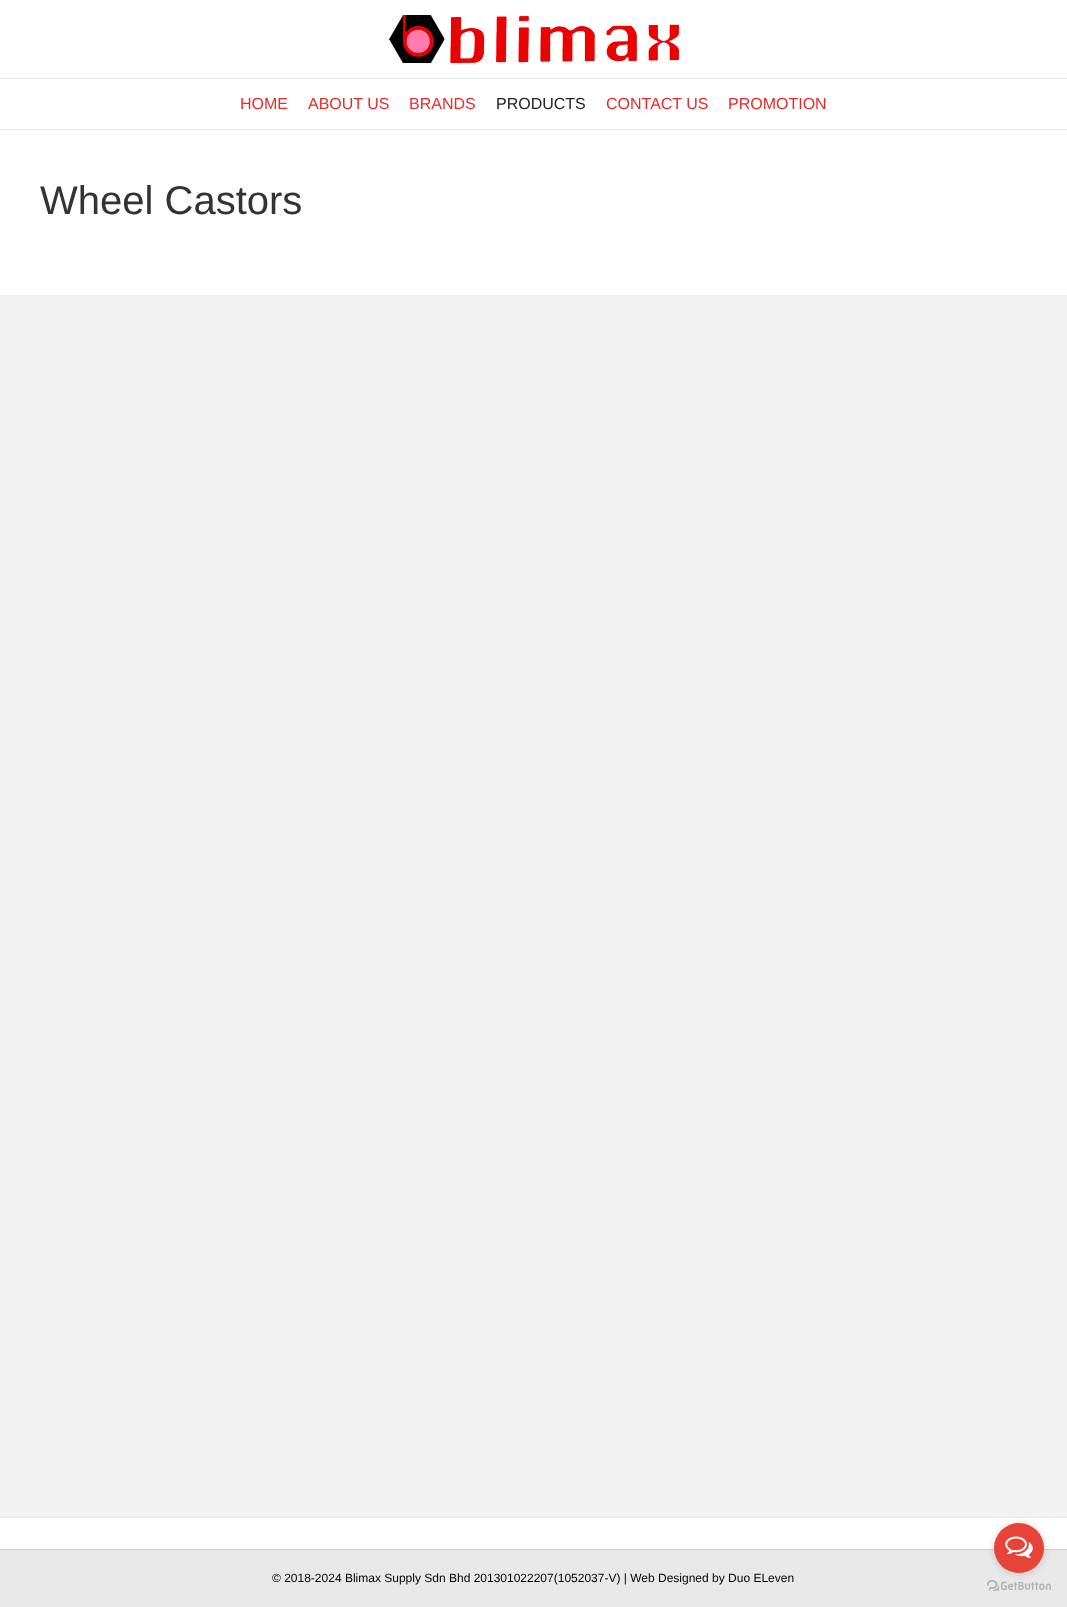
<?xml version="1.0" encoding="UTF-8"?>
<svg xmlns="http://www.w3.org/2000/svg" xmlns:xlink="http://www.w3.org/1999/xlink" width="1067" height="1607">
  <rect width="100%" height="100%" fill="#f2f2f2" />
  <rect width="1067" height="129" fill="#ffffff" />
  <image x="389" y="15" width="290" height="48" xlink:href="image1.png" />
  <rect y="78" width="1067" height="1" fill="#e6e6e6" />
  <rect y="129" width="1067" height="1" fill="#e6e6e6" />
  <rect y="130" width="1067" height="165" fill="#ffffff" />
  <rect y="1518" width="1067" height="31" fill="#ffffff" />
  <rect y="1517" width="1067" height="1" fill="#e6e6e6" />
  <rect y="1550" width="1067" height="57" fill="#e8e8e8" />
  <rect y="1549" width="1067" height="1" fill="#cfcfcf" />
  <image x="987" y="1580" width="64" height="11" xlink:href="image3.png" />
  <rect x="994" y="1524" width="50" height="50" rx="25" fill="#888888" fill-opacity="0.4" filter="blur(3.5px)" />
  <circle cx="1019" cy="1548" r="25" fill="#e74339" />
  <image x="1005" y="1536" width="28" height="23" xlink:href="image2.png" />
  <text x="240" y="109" style="font-family: Liberation Sans; font-size: 16px; fill: #e72a2a">HOME</text>
  <text x="308" y="109" style="font-family: Liberation Sans; font-size: 16px; fill: #e72a2a">ABOUT US</text>
  <text x="409" y="109" style="font-family: Liberation Sans; font-size: 16px; fill: #e72a2a">BRANDS</text>
  <text x="496" y="109" style="font-family: Liberation Sans; font-size: 16px; fill: #222222">PRODUCTS</text>
  <text x="606" y="109" style="font-family: Liberation Sans; font-size: 16px; fill: #e72a2a">CONTACT US</text>
  <text x="728" y="109" style="font-family: Liberation Sans; font-size: 16px; fill: #e72a2a">PROMOTION</text>
  <text x="40" y="214" style="font-family: Liberation Sans; font-size: 40px; fill: #333333">Wheel Castors</text>
  <text x="272" y="1582" style="font-family: Liberation Sans; font-size: 12px; fill: #000000">© 2018-2024 Blimax Supply Sdn Bhd 201301022207(1052037-V) | Web Designed by Duo ELeven</text>
</svg>
